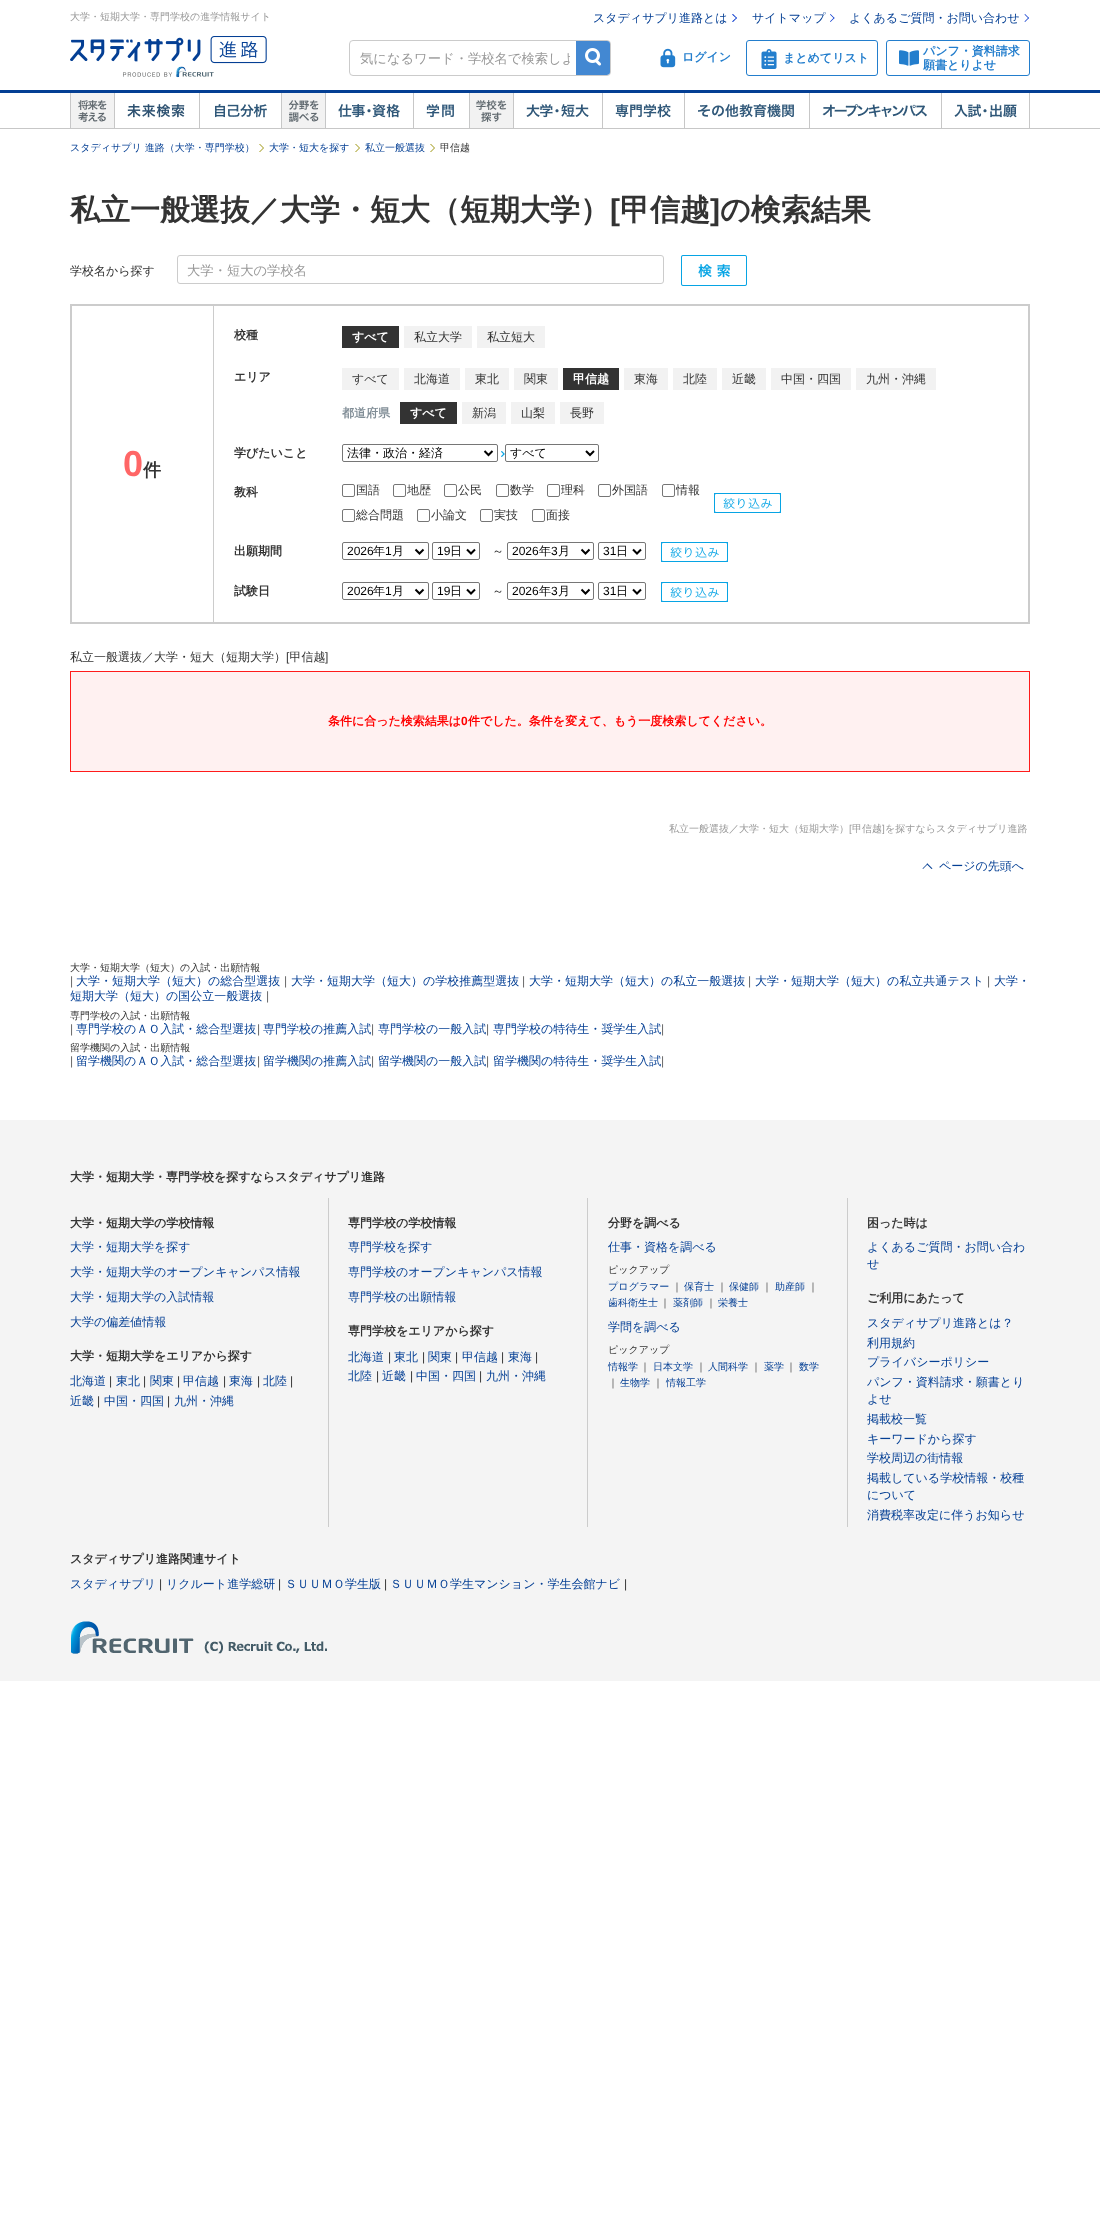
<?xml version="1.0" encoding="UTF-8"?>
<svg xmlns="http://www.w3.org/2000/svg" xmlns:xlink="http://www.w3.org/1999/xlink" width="1100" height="2223">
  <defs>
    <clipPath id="clip1"><rect x="360" y="51" width="210" height="16" /></clipPath>
  </defs>
  <rect width="100%" height="100%" fill="#ffffff" />
  <image x="70" y="36" width="197" height="42" xlink:href="image1.png" />
  <path d="M 733 14 l 4 4 l -0.5 0.5 l -4.5 -4 z" fill="#0033cc" />
  <path d="M 736.5 17.5 l 0.5 0.5 l -4 4 l -1 -0.5 z" fill="#0033cc" />
  <path d="M 830.5 14 l 4 4 l -0.5 0.5 l -4 -4 z" fill="#0033cc" />
  <path d="M 834 17.5 l 0.5 0.5 l -4 4 l -0.5 -0.5 z" fill="#0033cc" />
  <path d="M 1025 14 l 4 4 l -0.5 0.5 l -4 -4 z" fill="#0033cc" />
  <path d="M 1028.5 17.5 l 0.5 0.5 l -4 4 l -0.5 -0.5 z" fill="#0033cc" />
  <rect x="349.5" y="40.5" width="261" height="35" rx="3.5" fill="none" stroke="#cbcbcb" />
  <image x="576" y="41" width="34" height="34" xlink:href="image2.png" />
  <image x="660" y="48" width="16" height="20" xlink:href="image3.png" />
  <rect x="746.5" y="40.5" width="131" height="35" rx="2.5" fill="none" stroke="#237ecd" />
  <image x="761" y="49" width="16" height="20" xlink:href="image4.png" />
  <rect x="886.5" y="40.5" width="143" height="35" rx="2.5" fill="none" stroke="#237ecd" />
  <image x="899" y="50" width="20" height="16" xlink:href="image5.png" />
  <image x="0" y="90" width="1100" height="39" xlink:href="image6.png" />
  <image x="70" y="93" width="44" height="35" xlink:href="image7.png" />
  <image x="114" y="93" width="71" height="35" xlink:href="image8.png" />
  <image x="199" y="93" width="68" height="35" xlink:href="image9.png" />
  <image x="281" y="93" width="44" height="35" xlink:href="image10.png" />
  <image x="325" y="93" width="75" height="35" xlink:href="image11.png" />
  <image x="413" y="93" width="41" height="35" xlink:href="image12.png" />
  <image x="469" y="93" width="44" height="35" xlink:href="image13.png" />
  <image x="513" y="93" width="76" height="35" xlink:href="image14.png" />
  <image x="602" y="93" width="69" height="35" xlink:href="image15.png" />
  <image x="684" y="93" width="110" height="35" xlink:href="image16.png" />
  <image x="809" y="93" width="118" height="35" xlink:href="image17.png" />
  <image x="941" y="93" width="89" height="35" xlink:href="image18.png" />
  <image x="259" y="144" width="5" height="8" xlink:href="image19.png" />
  <image x="355" y="144" width="5" height="8" xlink:href="image19.png" />
  <image x="430" y="144" width="5" height="8" xlink:href="image19.png" />
  <rect x="177.5" y="255.5" width="486" height="28" rx="2.5" fill="none" stroke="#cccccc" />
  <image x="681" y="255" width="66" height="31" xlink:href="image20.png" />
  <rect x="71" y="305" width="958" height="318" fill="none" stroke="#cccccc" stroke-width="2" />
  <rect x="213" y="306" width="1" height="316" fill="#cccccc" />
  <rect x="342" y="326" width="57" height="22" fill="#333333" />
  <rect x="404" y="326" width="68" height="22" fill="#f2f2f2" />
  <rect x="477" y="326" width="68" height="22" fill="#f2f2f2" />
  <rect x="342" y="368" width="57" height="22" fill="#f2f2f2" />
  <rect x="404" y="368" width="56" height="22" fill="#f2f2f2" />
  <rect x="465" y="368" width="44" height="22" fill="#f2f2f2" />
  <rect x="514" y="368" width="44" height="22" fill="#f2f2f2" />
  <rect x="563" y="368" width="56" height="22" fill="#333333" />
  <rect x="624" y="368" width="44" height="22" fill="#f2f2f2" />
  <rect x="673" y="368" width="44" height="22" fill="#f2f2f2" />
  <rect x="722" y="368" width="44" height="22" fill="#f2f2f2" />
  <rect x="771" y="368" width="80" height="22" fill="#f2f2f2" />
  <rect x="856" y="368" width="80" height="22" fill="#f2f2f2" />
  <rect x="400" y="402" width="57" height="22" fill="#333333" />
  <rect x="462" y="402" width="44" height="22" fill="#f2f2f2" />
  <rect x="511" y="402" width="44" height="22" fill="#f2f2f2" />
  <rect x="560" y="402" width="44" height="22" fill="#f2f2f2" />
  <rect x="342.5" y="444.5" width="155" height="17" rx="1.5" fill="none" stroke="#767676" />
  <path d="M 484.5 451 l 4 4 l 4 -4" fill="none" stroke="#000000" stroke-width="2" />
  <image x="501" y="451" width="4" height="6" xlink:href="image21.png" />
  <rect x="505.5" y="444.5" width="93" height="17" rx="1.5" fill="none" stroke="#767676" />
  <path d="M 586 451 l 4 4 l 4 -4" fill="none" stroke="#000000" stroke-width="2" />
  <rect x="342.5" y="484.5" width="12" height="12" rx="1.5" fill="none" stroke="#767676" />
  <rect x="393.5" y="484.5" width="12" height="12" rx="1.5" fill="none" stroke="#767676" />
  <rect x="444.5" y="484.5" width="12" height="12" rx="1.5" fill="none" stroke="#767676" />
  <rect x="496.5" y="484.5" width="12" height="12" rx="1.5" fill="none" stroke="#767676" />
  <rect x="547.5" y="484.5" width="12" height="12" rx="1.5" fill="none" stroke="#767676" />
  <rect x="598.5" y="484.5" width="12" height="12" rx="1.5" fill="none" stroke="#767676" />
  <rect x="662.5" y="484.5" width="12" height="12" rx="1.5" fill="none" stroke="#767676" />
  <rect x="342.5" y="509.5" width="12" height="12" rx="1.5" fill="none" stroke="#767676" />
  <rect x="417.5" y="509.5" width="12" height="12" rx="1.5" fill="none" stroke="#767676" />
  <rect x="480.5" y="509.5" width="12" height="12" rx="1.5" fill="none" stroke="#767676" />
  <rect x="532.5" y="509.5" width="12" height="12" rx="1.5" fill="none" stroke="#767676" />
  <image x="714" y="493" width="67" height="20" xlink:href="image22.png" />
  <rect x="342.5" y="542.5" width="86" height="17" rx="1.5" fill="none" stroke="#767676" />
  <path d="M 415.5 549.5 l 4 4 l 4 -4" fill="none" stroke="#000000" stroke-width="2" />
  <rect x="432.5" y="542.5" width="47" height="17" rx="1.5" fill="none" stroke="#767676" />
  <path d="M 467 549.5 l 4 4 l 4 -4" fill="none" stroke="#000000" stroke-width="2" />
  <rect x="507.5" y="542.5" width="86" height="17" rx="1.5" fill="none" stroke="#767676" />
  <path d="M 581.5 549.5 l 4 4 l 4 -4" fill="none" stroke="#000000" stroke-width="2" />
  <rect x="598.5" y="542.5" width="47" height="17" rx="1.5" fill="none" stroke="#767676" />
  <path d="M 633 549.5 l 4 4 l 4 -4" fill="none" stroke="#000000" stroke-width="2" />
  <image x="661" y="542" width="67" height="20" xlink:href="image22.png" />
  <rect x="342.5" y="582.5" width="86" height="17" rx="1.5" fill="none" stroke="#767676" />
  <path d="M 415.5 589.5 l 4 4 l 4 -4" fill="none" stroke="#000000" stroke-width="2" />
  <rect x="432.5" y="582.5" width="47" height="17" rx="1.5" fill="none" stroke="#767676" />
  <path d="M 467 589.5 l 4 4 l 4 -4" fill="none" stroke="#000000" stroke-width="2" />
  <rect x="507.5" y="582.5" width="86" height="17" rx="1.5" fill="none" stroke="#767676" />
  <path d="M 581.5 589.5 l 4 4 l 4 -4" fill="none" stroke="#000000" stroke-width="2" />
  <rect x="598.5" y="582.5" width="47" height="17" rx="1.5" fill="none" stroke="#767676" />
  <path d="M 633 589.5 l 4 4 l 4 -4" fill="none" stroke="#000000" stroke-width="2" />
  <image x="661" y="582" width="67" height="20" xlink:href="image22.png" />
  <rect x="70.5" y="671.5" width="959" height="100" fill="#fff1f1" stroke="#ff1b1b" />
  <path d="M 927.5 863.5 l 5 5 l -1 0.5 l -5 -5 z" fill="#043f94" />
  <path d="M 927.5 863.5 l 0.5 0.5 l -5 5 l -0.5 -0.5 z" fill="#043f94" />
  <rect y="1120" width="1100" height="561" fill="#f4f4f4" />
  <rect x="328" y="1198" width="1" height="329" fill="#cccccc" />
  <rect x="587" y="1198" width="1" height="329" fill="#cccccc" />
  <rect x="847" y="1198" width="1" height="329" fill="#cccccc" />
  <image x="71" y="1621" width="256" height="33" xlink:href="image23.png" />
  <text x="70" y="20" style="font-family: WenQuanYi Zen Hei; font-size: 10px; font-weight: 500; fill: #999999">大学・短期大学・専門学校の進学情報サイト</text>
  <text x="593" y="22" style="font-family: WenQuanYi Zen Hei; font-size: 12px; font-weight: 500; fill: #043f94">スタディサプリ進路とは</text>
  <text x="752" y="22" style="font-family: WenQuanYi Zen Hei; font-size: 12px; font-weight: 500; fill: #043f94">サイトマップ</text>
  <text x="849" y="22" style="font-family: WenQuanYi Zen Hei; font-size: 12px; font-weight: 500; fill: #043f94">よくあるご質問・お問い合わせ</text>
  <g clip-path="url(#clip1)">
    <text x="360" y="63" style="font-family: WenQuanYi Zen Hei; font-size: 13.3px; font-weight: 500; fill: #999999">気になるワード・学校名で検索しよ</text>
  </g>
  <text x="682" y="61" style="font-family: WenQuanYi Zen Hei; font-size: 12px; font-weight: bold; fill: #237ecd">ログイン</text>
  <text x="783" y="62" style="font-family: WenQuanYi Zen Hei; font-size: 12px; font-weight: bold; fill: #237ecd">まとめてリスト</text>
  <text x="923" y="55" style="font-family: WenQuanYi Zen Hei; font-size: 12px; font-weight: bold; fill: #237ecd">パンフ・資料請求</text>
  <text x="923" y="69" style="font-family: WenQuanYi Zen Hei; font-size: 12px; font-weight: bold; fill: #237ecd">願書とりよせ</text>
  <text x="70" y="151" style="font-family: WenQuanYi Zen Hei; font-size: 10px; font-weight: 500; fill: #043f94">スタディサプリ 進路（大学・専門学校）</text>
  <text x="269" y="151" style="font-family: WenQuanYi Zen Hei; font-size: 10px; font-weight: 500; fill: #043f94">大学・短大を探す</text>
  <text x="365" y="151" style="font-family: WenQuanYi Zen Hei; font-size: 10px; font-weight: 500; fill: #043f94">私立一般選抜</text>
  <text x="440" y="151" style="font-family: WenQuanYi Zen Hei; font-size: 10px; font-weight: 500; fill: #333333">甲信越</text>
  <text x="70" y="220" style="font-family: WenQuanYi Zen Hei; font-size: 30px; font-weight: bold; fill: #333333">私立一般選抜／大学・短大（短期大学）</text>
  <text x="610" y="220" style="font-family: Liberation Sans; font-size: 30px; font-weight: bold; fill: #333333">[</text>
  <text x="620" y="220" style="font-family: WenQuanYi Zen Hei; font-size: 30px; font-weight: bold; fill: #333333">甲信越</text>
  <text x="710" y="220" style="font-family: Liberation Sans; font-size: 30px; font-weight: bold; fill: #333333">]</text>
  <text x="720" y="220" style="font-family: WenQuanYi Zen Hei; font-size: 30px; font-weight: bold; fill: #333333">の検索結果</text>
  <text x="70" y="275" style="font-family: WenQuanYi Zen Hei; font-size: 12px; font-weight: 500; fill: #333333">学校名から探す</text>
  <text x="187" y="275" style="font-family: WenQuanYi Zen Hei; font-size: 13.3px; font-weight: 500; fill: #999999">大学・短大の学校名</text>
  <text x="123" y="476" style="font-family: Liberation Sans; font-size: 36px; font-weight: bold; fill: #ff6666">0</text>
  <text x="143" y="476" style="font-family: WenQuanYi Zen Hei; font-size: 18px; font-weight: bold; fill: #333333">件</text>
  <text x="234" y="339" style="font-family: WenQuanYi Zen Hei; font-size: 12px; font-weight: bold; fill: #333333">校種</text>
  <text x="352" y="341" style="font-family: WenQuanYi Zen Hei; font-size: 12px; font-weight: bold; fill: #ffffff">すべて</text>
  <text x="414" y="341" style="font-family: WenQuanYi Zen Hei; font-size: 12px; font-weight: 500; fill: #333333">私立大学</text>
  <text x="487" y="341" style="font-family: WenQuanYi Zen Hei; font-size: 12px; font-weight: 500; fill: #333333">私立短大</text>
  <text x="234" y="381" style="font-family: WenQuanYi Zen Hei; font-size: 12px; font-weight: bold; fill: #333333">エリア</text>
  <text x="352" y="383" style="font-family: WenQuanYi Zen Hei; font-size: 12px; font-weight: 500; fill: #333333">すべて</text>
  <text x="414" y="383" style="font-family: WenQuanYi Zen Hei; font-size: 12px; font-weight: 500; fill: #333333">北海道</text>
  <text x="475" y="383" style="font-family: WenQuanYi Zen Hei; font-size: 12px; font-weight: 500; fill: #333333">東北</text>
  <text x="524" y="383" style="font-family: WenQuanYi Zen Hei; font-size: 12px; font-weight: 500; fill: #333333">関東</text>
  <text x="573" y="383" style="font-family: WenQuanYi Zen Hei; font-size: 12px; font-weight: bold; fill: #ffffff">甲信越</text>
  <text x="634" y="383" style="font-family: WenQuanYi Zen Hei; font-size: 12px; font-weight: 500; fill: #333333">東海</text>
  <text x="683" y="383" style="font-family: WenQuanYi Zen Hei; font-size: 12px; font-weight: 500; fill: #333333">北陸</text>
  <text x="732" y="383" style="font-family: WenQuanYi Zen Hei; font-size: 12px; font-weight: 500; fill: #333333">近畿</text>
  <text x="781" y="383" style="font-family: WenQuanYi Zen Hei; font-size: 12px; font-weight: 500; fill: #333333">中国・四国</text>
  <text x="866" y="383" style="font-family: WenQuanYi Zen Hei; font-size: 12px; font-weight: 500; fill: #333333">九州・沖縄</text>
  <text x="342" y="417" style="font-family: WenQuanYi Zen Hei; font-size: 12px; font-weight: bold; fill: #808d96">都道府県</text>
  <text x="410" y="417" style="font-family: WenQuanYi Zen Hei; font-size: 12px; font-weight: bold; fill: #ffffff">すべて</text>
  <text x="472" y="417" style="font-family: WenQuanYi Zen Hei; font-size: 12px; font-weight: 500; fill: #333333">新潟</text>
  <text x="521" y="417" style="font-family: WenQuanYi Zen Hei; font-size: 12px; font-weight: 500; fill: #333333">山梨</text>
  <text x="570" y="417" style="font-family: WenQuanYi Zen Hei; font-size: 12px; font-weight: 500; fill: #333333">長野</text>
  <text x="234" y="457" style="font-family: WenQuanYi Zen Hei; font-size: 12px; font-weight: bold; fill: #333333">学びたいこと</text>
  <text x="347" y="457" style="font-family: WenQuanYi Zen Hei; font-size: 12px; font-weight: 500; fill: #000000">法律・政治・経済</text>
  <text x="510" y="457" style="font-family: WenQuanYi Zen Hei; font-size: 12px; font-weight: 500; fill: #000000">すべて</text>
  <text x="234" y="496" style="font-family: WenQuanYi Zen Hei; font-size: 12px; font-weight: bold; fill: #333333">教科</text>
  <text x="356" y="494" style="font-family: WenQuanYi Zen Hei; font-size: 12px; font-weight: 500; fill: #333333">国語</text>
  <text x="407" y="494" style="font-family: WenQuanYi Zen Hei; font-size: 12px; font-weight: 500; fill: #333333">地歴</text>
  <text x="458" y="494" style="font-family: WenQuanYi Zen Hei; font-size: 12px; font-weight: 500; fill: #333333">公民</text>
  <text x="510" y="494" style="font-family: WenQuanYi Zen Hei; font-size: 12px; font-weight: 500; fill: #333333">数学</text>
  <text x="561" y="494" style="font-family: WenQuanYi Zen Hei; font-size: 12px; font-weight: 500; fill: #333333">理科</text>
  <text x="612" y="494" style="font-family: WenQuanYi Zen Hei; font-size: 12px; font-weight: 500; fill: #333333">外国語</text>
  <text x="676" y="494" style="font-family: WenQuanYi Zen Hei; font-size: 12px; font-weight: 500; fill: #333333">情報</text>
  <text x="356" y="519" style="font-family: WenQuanYi Zen Hei; font-size: 12px; font-weight: 500; fill: #333333">総合問題</text>
  <text x="431" y="519" style="font-family: WenQuanYi Zen Hei; font-size: 12px; font-weight: 500; fill: #333333">小論文</text>
  <text x="494" y="519" style="font-family: WenQuanYi Zen Hei; font-size: 12px; font-weight: 500; fill: #333333">実技</text>
  <text x="546" y="519" style="font-family: WenQuanYi Zen Hei; font-size: 12px; font-weight: 500; fill: #333333">面接</text>
  <text x="234" y="555" style="font-family: WenQuanYi Zen Hei; font-size: 12px; font-weight: bold; fill: #333333">出願期間</text>
  <text x="347" y="555" style="font-family: Liberation Sans; font-size: 12px; fill: #000000">2026</text>
  <text x="373" y="555" style="font-family: WenQuanYi Zen Hei; font-size: 12px; font-weight: 500; fill: #000000">年</text>
  <text x="385" y="555" style="font-family: Liberation Sans; font-size: 12px; fill: #000000">1</text>
  <text x="392" y="555" style="font-family: WenQuanYi Zen Hei; font-size: 12px; font-weight: 500; fill: #000000">月</text>
  <text x="437" y="555" style="font-family: Liberation Sans; font-size: 12px; fill: #000000">19</text>
  <text x="450" y="555" style="font-family: WenQuanYi Zen Hei; font-size: 12px; font-weight: 500; fill: #000000">日</text>
  <text x="492" y="555" style="font-family: WenQuanYi Zen Hei; font-size: 12px; font-weight: 500; fill: #333333">～</text>
  <text x="512" y="555" style="font-family: Liberation Sans; font-size: 12px; fill: #000000">2026</text>
  <text x="539" y="555" style="font-family: WenQuanYi Zen Hei; font-size: 12px; font-weight: 500; fill: #000000">年</text>
  <text x="551" y="555" style="font-family: Liberation Sans; font-size: 12px; fill: #000000">3</text>
  <text x="558" y="555" style="font-family: WenQuanYi Zen Hei; font-size: 12px; font-weight: 500; fill: #000000">月</text>
  <text x="603" y="555" style="font-family: Liberation Sans; font-size: 12px; fill: #000000">31</text>
  <text x="616" y="555" style="font-family: WenQuanYi Zen Hei; font-size: 12px; font-weight: 500; fill: #000000">日</text>
  <text x="234" y="595" style="font-family: WenQuanYi Zen Hei; font-size: 12px; font-weight: bold; fill: #333333">試験日</text>
  <text x="347" y="595" style="font-family: Liberation Sans; font-size: 12px; fill: #000000">2026</text>
  <text x="373" y="595" style="font-family: WenQuanYi Zen Hei; font-size: 12px; font-weight: 500; fill: #000000">年</text>
  <text x="385" y="595" style="font-family: Liberation Sans; font-size: 12px; fill: #000000">1</text>
  <text x="392" y="595" style="font-family: WenQuanYi Zen Hei; font-size: 12px; font-weight: 500; fill: #000000">月</text>
  <text x="437" y="595" style="font-family: Liberation Sans; font-size: 12px; fill: #000000">19</text>
  <text x="450" y="595" style="font-family: WenQuanYi Zen Hei; font-size: 12px; font-weight: 500; fill: #000000">日</text>
  <text x="492" y="595" style="font-family: WenQuanYi Zen Hei; font-size: 12px; font-weight: 500; fill: #333333">～</text>
  <text x="512" y="595" style="font-family: Liberation Sans; font-size: 12px; fill: #000000">2026</text>
  <text x="539" y="595" style="font-family: WenQuanYi Zen Hei; font-size: 12px; font-weight: 500; fill: #000000">年</text>
  <text x="551" y="595" style="font-family: Liberation Sans; font-size: 12px; fill: #000000">3</text>
  <text x="558" y="595" style="font-family: WenQuanYi Zen Hei; font-size: 12px; font-weight: 500; fill: #000000">月</text>
  <text x="603" y="595" style="font-family: Liberation Sans; font-size: 12px; fill: #000000">31</text>
  <text x="616" y="595" style="font-family: WenQuanYi Zen Hei; font-size: 12px; font-weight: 500; fill: #000000">日</text>
  <text x="70" y="661" style="font-family: WenQuanYi Zen Hei; font-size: 12px; font-weight: 500; fill: #333333">私立一般選抜／大学・短大（短期大学） 甲信越</text>
  <text x="286" y="661" style="font-family: Liberation Sans; font-size: 12px; fill: #333333">[</text>
  <text x="325" y="661" style="font-family: Liberation Sans; font-size: 12px; fill: #333333">]</text>
  <text x="328" y="725" style="font-family: WenQuanYi Zen Hei; font-size: 12px; font-weight: bold; fill: #ff0000">条件に合った検索結果は</text>
  <text x="461" y="725" style="font-family: Liberation Sans; font-size: 12px; font-weight: bold; fill: #ff0000">0</text>
  <text x="468" y="725" style="font-family: WenQuanYi Zen Hei; font-size: 12px; font-weight: bold; fill: #ff0000">件でした。条件を変えて、もう一度検索してください。</text>
  <text x="669" y="832" style="font-family: WenQuanYi Zen Hei; font-size: 10px; font-weight: 500; fill: #999999">私立一般選抜／大学・短大（短期大学） 甲信越 を探すならスタディサプリ進路</text>
  <text x="849" y="832" style="font-family: Liberation Sans; font-size: 10px; fill: #999999">[</text>
  <text x="882" y="832" style="font-family: Liberation Sans; font-size: 10px; fill: #999999">]</text>
  <text x="939" y="870" style="font-family: WenQuanYi Zen Hei; font-size: 12px; font-weight: 500; fill: #043f94">ページの先頭へ</text>
  <text x="70" y="971" style="font-family: WenQuanYi Zen Hei; font-size: 10px; font-weight: 500; fill: #333333">大学・短期大学（短大）の入試・出願情報</text>
  <text x="70" y="985" style="font-family: Liberation Sans; font-size: 12px; fill: #666666">|</text>
  <text x="76" y="985" style="font-family: WenQuanYi Zen Hei; font-size: 12px; font-weight: 500; fill: #043f94">大学・短期大学（短大）の総合型選抜</text>
  <text x="284" y="985" style="font-family: Liberation Sans; font-size: 12px; fill: #666666">|</text>
  <text x="291" y="985" style="font-family: WenQuanYi Zen Hei; font-size: 12px; font-weight: 500; fill: #043f94">大学・短期大学（短大）の学校推薦型選抜</text>
  <text x="522" y="985" style="font-family: Liberation Sans; font-size: 12px; fill: #666666">|</text>
  <text x="529" y="985" style="font-family: WenQuanYi Zen Hei; font-size: 12px; font-weight: 500; fill: #043f94">大学・短期大学（短大）の私立一般選抜</text>
  <text x="748" y="985" style="font-family: Liberation Sans; font-size: 12px; fill: #666666">|</text>
  <text x="755" y="985" style="font-family: WenQuanYi Zen Hei; font-size: 12px; font-weight: 500; fill: #043f94">大学・短期大学（短大）の私立共通テスト</text>
  <text x="987" y="985" style="font-family: Liberation Sans; font-size: 12px; fill: #666666">|</text>
  <text x="994" y="985" style="font-family: WenQuanYi Zen Hei; font-size: 12px; font-weight: 500; fill: #043f94">大学・</text>
  <text x="70" y="1000" style="font-family: WenQuanYi Zen Hei; font-size: 12px; font-weight: 500; fill: #043f94">短期大学（短大）の国公立一般選抜</text>
  <text x="266" y="1000" style="font-family: Liberation Sans; font-size: 12px; fill: #666666">|</text>
  <text x="70" y="1019" style="font-family: WenQuanYi Zen Hei; font-size: 10px; font-weight: 500; fill: #333333">専門学校の入試・出願情報</text>
  <text x="70" y="1033" style="font-family: Liberation Sans; font-size: 12px; fill: #666666">|</text>
  <text x="76" y="1033" style="font-family: WenQuanYi Zen Hei; font-size: 12px; font-weight: 500; fill: #043f94">専門学校のＡＯ入試・総合型選抜</text>
  <text x="257" y="1033" style="font-family: Liberation Sans; font-size: 12px; fill: #666666">|</text>
  <text x="263" y="1033" style="font-family: WenQuanYi Zen Hei; font-size: 12px; font-weight: 500; fill: #043f94">専門学校の推薦入試</text>
  <text x="371" y="1033" style="font-family: Liberation Sans; font-size: 12px; fill: #666666">|</text>
  <text x="378" y="1033" style="font-family: WenQuanYi Zen Hei; font-size: 12px; font-weight: 500; fill: #043f94">専門学校の一般入試</text>
  <text x="486" y="1033" style="font-family: Liberation Sans; font-size: 12px; fill: #666666">|</text>
  <text x="493" y="1033" style="font-family: WenQuanYi Zen Hei; font-size: 12px; font-weight: 500; fill: #043f94">専門学校の特待生・奨学生入試</text>
  <text x="661" y="1033" style="font-family: Liberation Sans; font-size: 12px; fill: #666666">|</text>
  <text x="70" y="1051" style="font-family: WenQuanYi Zen Hei; font-size: 10px; font-weight: 500; fill: #333333">留学機関の入試・出願情報</text>
  <text x="70" y="1065" style="font-family: Liberation Sans; font-size: 12px; fill: #666666">|</text>
  <text x="76" y="1065" style="font-family: WenQuanYi Zen Hei; font-size: 12px; font-weight: 500; fill: #043f94">留学機関のＡＯ入試・総合型選抜</text>
  <text x="257" y="1065" style="font-family: Liberation Sans; font-size: 12px; fill: #666666">|</text>
  <text x="263" y="1065" style="font-family: WenQuanYi Zen Hei; font-size: 12px; font-weight: 500; fill: #043f94">留学機関の推薦入試</text>
  <text x="371" y="1065" style="font-family: Liberation Sans; font-size: 12px; fill: #666666">|</text>
  <text x="378" y="1065" style="font-family: WenQuanYi Zen Hei; font-size: 12px; font-weight: 500; fill: #043f94">留学機関の一般入試</text>
  <text x="486" y="1065" style="font-family: Liberation Sans; font-size: 12px; fill: #666666">|</text>
  <text x="493" y="1065" style="font-family: WenQuanYi Zen Hei; font-size: 12px; font-weight: 500; fill: #043f94">留学機関の特待生・奨学生入試</text>
  <text x="661" y="1065" style="font-family: Liberation Sans; font-size: 12px; fill: #666666">|</text>
  <text x="70" y="1181" style="font-family: WenQuanYi Zen Hei; font-size: 12px; font-weight: bold; fill: #333333">大学・短期大学・専門学校を探すならスタディサプリ進路</text>
  <text x="70" y="1227" style="font-family: WenQuanYi Zen Hei; font-size: 12px; font-weight: bold; fill: #333333">大学・短期大学の学校情報</text>
  <text x="70" y="1251" style="font-family: WenQuanYi Zen Hei; font-size: 12px; font-weight: 500; fill: #043f94">大学・短期大学を探す</text>
  <text x="70" y="1276" style="font-family: WenQuanYi Zen Hei; font-size: 12px; font-weight: 500; fill: #043f94">大学・短期大学のオープンキャンパス情報</text>
  <text x="70" y="1301" style="font-family: WenQuanYi Zen Hei; font-size: 12px; font-weight: 500; fill: #043f94">大学・短期大学の入試情報</text>
  <text x="70" y="1326" style="font-family: WenQuanYi Zen Hei; font-size: 12px; font-weight: 500; fill: #043f94">大学の偏差値情報</text>
  <text x="70" y="1360" style="font-family: WenQuanYi Zen Hei; font-size: 12px; font-weight: bold; fill: #333333">大学・短期大学をエリアから探す</text>
  <text x="70" y="1385" style="font-family: WenQuanYi Zen Hei; font-size: 12px; font-weight: 500; fill: #043f94">北海道</text>
  <text x="109" y="1385" style="font-family: Liberation Sans; font-size: 12px; fill: #333333">|</text>
  <text x="116" y="1385" style="font-family: WenQuanYi Zen Hei; font-size: 12px; font-weight: 500; fill: #043f94">東北</text>
  <text x="143" y="1385" style="font-family: Liberation Sans; font-size: 12px; fill: #333333">|</text>
  <text x="150" y="1385" style="font-family: WenQuanYi Zen Hei; font-size: 12px; font-weight: 500; fill: #043f94">関東</text>
  <text x="177" y="1385" style="font-family: Liberation Sans; font-size: 12px; fill: #333333">|</text>
  <text x="183" y="1385" style="font-family: WenQuanYi Zen Hei; font-size: 12px; font-weight: 500; fill: #043f94">甲信越</text>
  <text x="223" y="1385" style="font-family: Liberation Sans; font-size: 12px; fill: #333333">|</text>
  <text x="229" y="1385" style="font-family: WenQuanYi Zen Hei; font-size: 12px; font-weight: 500; fill: #043f94">東海</text>
  <text x="257" y="1385" style="font-family: Liberation Sans; font-size: 12px; fill: #333333">|</text>
  <text x="263" y="1385" style="font-family: WenQuanYi Zen Hei; font-size: 12px; font-weight: 500; fill: #043f94">北陸</text>
  <text x="290" y="1385" style="font-family: Liberation Sans; font-size: 12px; fill: #333333">|</text>
  <text x="70" y="1405" style="font-family: WenQuanYi Zen Hei; font-size: 12px; font-weight: 500; fill: #043f94">近畿</text>
  <text x="97" y="1405" style="font-family: Liberation Sans; font-size: 12px; fill: #333333">|</text>
  <text x="104" y="1405" style="font-family: WenQuanYi Zen Hei; font-size: 12px; font-weight: 500; fill: #043f94">中国・四国</text>
  <text x="167" y="1405" style="font-family: Liberation Sans; font-size: 12px; fill: #333333">|</text>
  <text x="174" y="1405" style="font-family: WenQuanYi Zen Hei; font-size: 12px; font-weight: 500; fill: #043f94">九州・沖縄</text>
  <text x="348" y="1227" style="font-family: WenQuanYi Zen Hei; font-size: 12px; font-weight: bold; fill: #333333">専門学校の学校情報</text>
  <text x="348" y="1251" style="font-family: WenQuanYi Zen Hei; font-size: 12px; font-weight: 500; fill: #043f94">専門学校を探す</text>
  <text x="348" y="1276" style="font-family: WenQuanYi Zen Hei; font-size: 12px; font-weight: 500; fill: #043f94">専門学校のオープンキャンパス情報</text>
  <text x="348" y="1301" style="font-family: WenQuanYi Zen Hei; font-size: 12px; font-weight: 500; fill: #043f94">専門学校の出願情報</text>
  <text x="348" y="1335" style="font-family: WenQuanYi Zen Hei; font-size: 12px; font-weight: bold; fill: #333333">専門学校をエリアから探す</text>
  <text x="348" y="1361" style="font-family: WenQuanYi Zen Hei; font-size: 12px; font-weight: 500; fill: #043f94">北海道</text>
  <text x="388" y="1361" style="font-family: Liberation Sans; font-size: 12px; fill: #333333">|</text>
  <text x="394" y="1361" style="font-family: WenQuanYi Zen Hei; font-size: 12px; font-weight: 500; fill: #043f94">東北</text>
  <text x="422" y="1361" style="font-family: Liberation Sans; font-size: 12px; fill: #333333">|</text>
  <text x="428" y="1361" style="font-family: WenQuanYi Zen Hei; font-size: 12px; font-weight: 500; fill: #043f94">関東</text>
  <text x="455" y="1361" style="font-family: Liberation Sans; font-size: 12px; fill: #333333">|</text>
  <text x="462" y="1361" style="font-family: WenQuanYi Zen Hei; font-size: 12px; font-weight: 500; fill: #043f94">甲信越</text>
  <text x="501" y="1361" style="font-family: Liberation Sans; font-size: 12px; fill: #333333">|</text>
  <text x="508" y="1361" style="font-family: WenQuanYi Zen Hei; font-size: 12px; font-weight: 500; fill: #043f94">東海</text>
  <text x="535" y="1361" style="font-family: Liberation Sans; font-size: 12px; fill: #333333">|</text>
  <text x="348" y="1380" style="font-family: WenQuanYi Zen Hei; font-size: 12px; font-weight: 500; fill: #043f94">北陸</text>
  <text x="376" y="1380" style="font-family: Liberation Sans; font-size: 12px; fill: #333333">|</text>
  <text x="382" y="1380" style="font-family: WenQuanYi Zen Hei; font-size: 12px; font-weight: 500; fill: #043f94">近畿</text>
  <text x="410" y="1380" style="font-family: Liberation Sans; font-size: 12px; fill: #333333">|</text>
  <text x="416" y="1380" style="font-family: WenQuanYi Zen Hei; font-size: 12px; font-weight: 500; fill: #043f94">中国・四国</text>
  <text x="479" y="1380" style="font-family: Liberation Sans; font-size: 12px; fill: #333333">|</text>
  <text x="486" y="1380" style="font-family: WenQuanYi Zen Hei; font-size: 12px; font-weight: 500; fill: #043f94">九州・沖縄</text>
  <text x="608" y="1227" style="font-family: WenQuanYi Zen Hei; font-size: 12px; font-weight: bold; fill: #333333">分野を調べる</text>
  <text x="608" y="1251" style="font-family: WenQuanYi Zen Hei; font-size: 12px; font-weight: 500; fill: #043f94">仕事・資格を調べる</text>
  <text x="608" y="1273" style="font-family: WenQuanYi Zen Hei; font-size: 10px; font-weight: 500; fill: #333333">ピックアップ</text>
  <text x="608" y="1290" style="font-family: WenQuanYi Zen Hei; font-size: 10px; font-weight: 500; fill: #043f94">プログラマー</text>
  <text x="672" y="1290" style="font-family: WenQuanYi Zen Hei; font-size: 10px; font-weight: 500; fill: #333333">｜</text>
  <text x="684" y="1290" style="font-family: WenQuanYi Zen Hei; font-size: 10px; font-weight: 500; fill: #043f94">保育士</text>
  <text x="717" y="1290" style="font-family: WenQuanYi Zen Hei; font-size: 10px; font-weight: 500; fill: #333333">｜</text>
  <text x="729" y="1290" style="font-family: WenQuanYi Zen Hei; font-size: 10px; font-weight: 500; fill: #043f94">保健師</text>
  <text x="762" y="1290" style="font-family: WenQuanYi Zen Hei; font-size: 10px; font-weight: 500; fill: #333333">｜</text>
  <text x="775" y="1290" style="font-family: WenQuanYi Zen Hei; font-size: 10px; font-weight: 500; fill: #043f94">助産師</text>
  <text x="808" y="1290" style="font-family: WenQuanYi Zen Hei; font-size: 10px; font-weight: 500; fill: #333333">｜</text>
  <text x="608" y="1306" style="font-family: WenQuanYi Zen Hei; font-size: 10px; font-weight: 500; fill: #043f94">歯科衛生士</text>
  <text x="660" y="1306" style="font-family: WenQuanYi Zen Hei; font-size: 10px; font-weight: 500; fill: #333333">｜</text>
  <text x="673" y="1306" style="font-family: WenQuanYi Zen Hei; font-size: 10px; font-weight: 500; fill: #043f94">薬剤師</text>
  <text x="706" y="1306" style="font-family: WenQuanYi Zen Hei; font-size: 10px; font-weight: 500; fill: #333333">｜</text>
  <text x="718" y="1306" style="font-family: WenQuanYi Zen Hei; font-size: 10px; font-weight: 500; fill: #043f94">栄養士</text>
  <text x="608" y="1331" style="font-family: WenQuanYi Zen Hei; font-size: 12px; font-weight: 500; fill: #043f94">学問を調べる</text>
  <text x="608" y="1353" style="font-family: WenQuanYi Zen Hei; font-size: 10px; font-weight: 500; fill: #333333">ピックアップ</text>
  <text x="608" y="1370" style="font-family: WenQuanYi Zen Hei; font-size: 10px; font-weight: 500; fill: #043f94">情報学</text>
  <text x="640" y="1370" style="font-family: WenQuanYi Zen Hei; font-size: 10px; font-weight: 500; fill: #333333">｜</text>
  <text x="653" y="1370" style="font-family: WenQuanYi Zen Hei; font-size: 10px; font-weight: 500; fill: #043f94">日本文学</text>
  <text x="696" y="1370" style="font-family: WenQuanYi Zen Hei; font-size: 10px; font-weight: 500; fill: #333333">｜</text>
  <text x="708" y="1370" style="font-family: WenQuanYi Zen Hei; font-size: 10px; font-weight: 500; fill: #043f94">人間科学</text>
  <text x="751" y="1370" style="font-family: WenQuanYi Zen Hei; font-size: 10px; font-weight: 500; fill: #333333">｜</text>
  <text x="764" y="1370" style="font-family: WenQuanYi Zen Hei; font-size: 10px; font-weight: 500; fill: #043f94">薬学</text>
  <text x="786" y="1370" style="font-family: WenQuanYi Zen Hei; font-size: 10px; font-weight: 500; fill: #333333">｜</text>
  <text x="799" y="1370" style="font-family: WenQuanYi Zen Hei; font-size: 10px; font-weight: 500; fill: #043f94">数学</text>
  <text x="608" y="1386" style="font-family: WenQuanYi Zen Hei; font-size: 10px; font-weight: 500; fill: #333333">｜</text>
  <text x="620" y="1386" style="font-family: WenQuanYi Zen Hei; font-size: 10px; font-weight: 500; fill: #043f94">生物学</text>
  <text x="653" y="1386" style="font-family: WenQuanYi Zen Hei; font-size: 10px; font-weight: 500; fill: #333333">｜</text>
  <text x="666" y="1386" style="font-family: WenQuanYi Zen Hei; font-size: 10px; font-weight: 500; fill: #043f94">情報工学</text>
  <text x="867" y="1227" style="font-family: WenQuanYi Zen Hei; font-size: 12px; font-weight: bold; fill: #333333">困った時は</text>
  <text x="867" y="1251" style="font-family: WenQuanYi Zen Hei; font-size: 12px; font-weight: 500; fill: #043f94">よくあるご質問・お問い合わ</text>
  <text x="867" y="1268" style="font-family: WenQuanYi Zen Hei; font-size: 12px; font-weight: 500; fill: #043f94">せ</text>
  <text x="867" y="1302" style="font-family: WenQuanYi Zen Hei; font-size: 12px; font-weight: bold; fill: #333333">ご利用にあたって</text>
  <text x="867" y="1327" style="font-family: WenQuanYi Zen Hei; font-size: 12px; font-weight: 500; fill: #043f94">スタディサプリ進路とは？</text>
  <text x="867" y="1347" style="font-family: WenQuanYi Zen Hei; font-size: 12px; font-weight: 500; fill: #043f94">利用規約</text>
  <text x="867" y="1366" style="font-family: WenQuanYi Zen Hei; font-size: 12px; font-weight: 500; fill: #043f94">プライバシーポリシー</text>
  <text x="867" y="1386" style="font-family: WenQuanYi Zen Hei; font-size: 12px; font-weight: 500; fill: #043f94">パンフ・資料請求・願書とり</text>
  <text x="867" y="1403" style="font-family: WenQuanYi Zen Hei; font-size: 12px; font-weight: 500; fill: #043f94">よせ</text>
  <text x="867" y="1423" style="font-family: WenQuanYi Zen Hei; font-size: 12px; font-weight: 500; fill: #043f94">掲載校一覧</text>
  <text x="867" y="1443" style="font-family: WenQuanYi Zen Hei; font-size: 12px; font-weight: 500; fill: #043f94">キーワードから探す</text>
  <text x="867" y="1462" style="font-family: WenQuanYi Zen Hei; font-size: 12px; font-weight: 500; fill: #043f94">学校周辺の街情報</text>
  <text x="867" y="1482" style="font-family: WenQuanYi Zen Hei; font-size: 12px; font-weight: 500; fill: #043f94">掲載している学校情報・校種</text>
  <text x="867" y="1499" style="font-family: WenQuanYi Zen Hei; font-size: 12px; font-weight: 500; fill: #043f94">について</text>
  <text x="867" y="1519" style="font-family: WenQuanYi Zen Hei; font-size: 12px; font-weight: 500; fill: #043f94">消費税率改定に伴うお知らせ</text>
  <text x="70" y="1563" style="font-family: WenQuanYi Zen Hei; font-size: 12px; font-weight: bold; fill: #333333">スタディサプリ進路関連サイト</text>
  <text x="70" y="1588" style="font-family: WenQuanYi Zen Hei; font-size: 12px; font-weight: 500; fill: #043f94">スタディサプリ</text>
  <text x="159" y="1588" style="font-family: Liberation Sans; font-size: 12px; fill: #333333">|</text>
  <text x="166" y="1588" style="font-family: WenQuanYi Zen Hei; font-size: 12px; font-weight: 500; fill: #043f94">リクルート進学総研</text>
  <text x="278" y="1588" style="font-family: Liberation Sans; font-size: 12px; fill: #333333">|</text>
  <text x="285" y="1588" style="font-family: WenQuanYi Zen Hei; font-size: 12px; font-weight: 500; fill: #043f94">ＳＵＵＭＯ学生版</text>
  <text x="384" y="1588" style="font-family: Liberation Sans; font-size: 12px; fill: #333333">|</text>
  <text x="390" y="1588" style="font-family: WenQuanYi Zen Hei; font-size: 12px; font-weight: 500; fill: #043f94">ＳＵＵＭＯ学生マンション・学生会館ナビ</text>
  <text x="624" y="1588" style="font-family: Liberation Sans; font-size: 12px; fill: #333333">|</text>
</svg>
